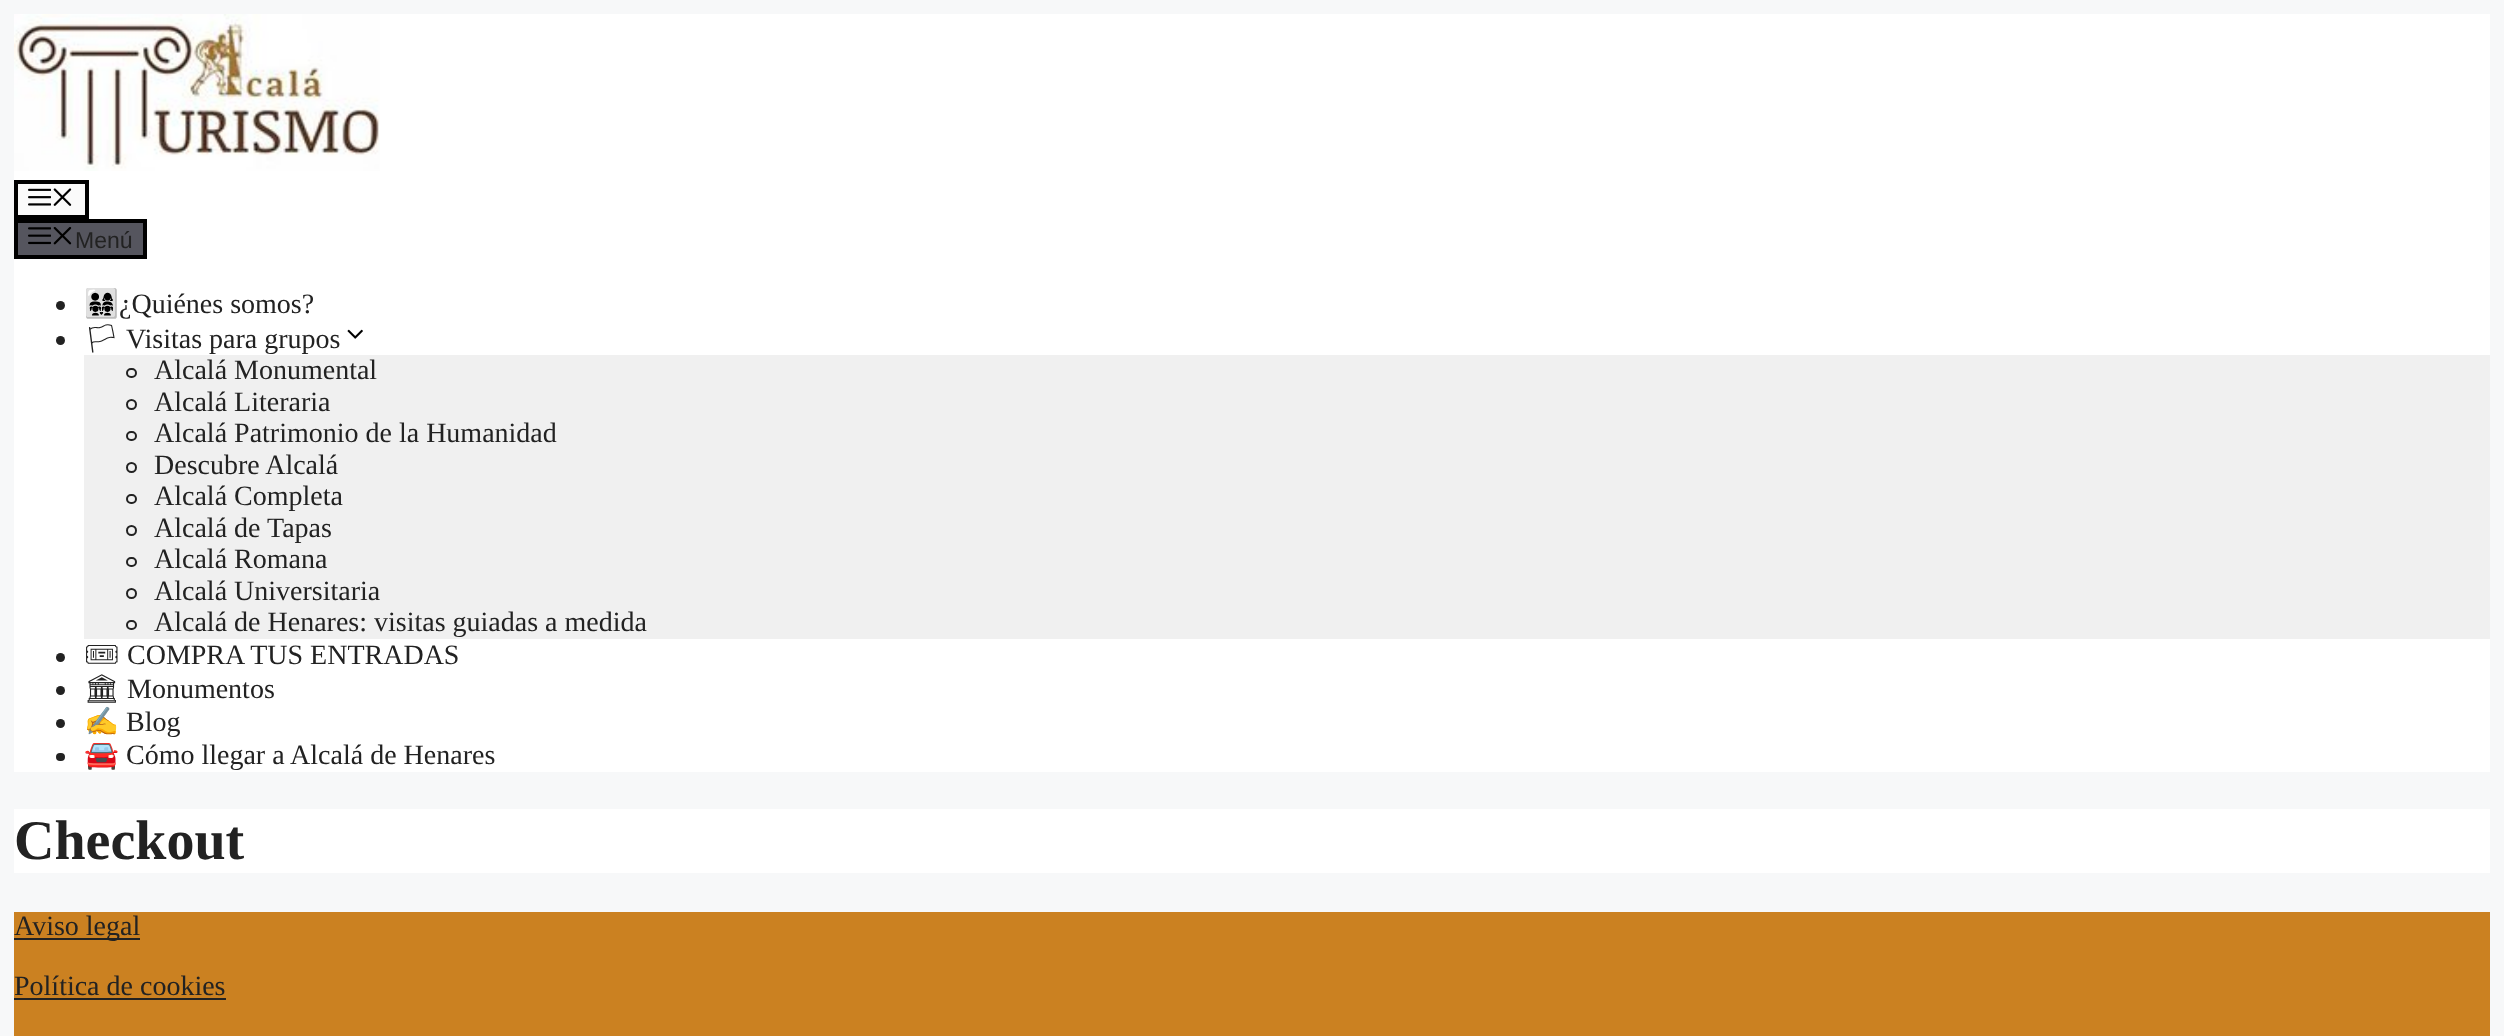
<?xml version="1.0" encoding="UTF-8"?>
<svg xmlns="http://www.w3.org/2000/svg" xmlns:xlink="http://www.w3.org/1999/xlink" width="2504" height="1036">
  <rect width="100%" height="100%" fill="#f7f8f9" />
  <rect x="14" y="14" width="2476" height="758" fill="#ffffff" />
  <image x="14" y="14" width="366" height="157" xlink:href="image1.png" />
  <rect x="16" y="182" width="71" height="35" fill="#fafafa" stroke="#000000" stroke-width="4" />
  <image x="28" y="188" width="23" height="18" xlink:href="image2.png" />
  <image x="53" y="188" width="19" height="18" xlink:href="image3.png" />
  <rect x="16" y="221" width="129" height="36" fill="#55555e" stroke="#000000" stroke-width="4" />
  <image x="28" y="227" width="23" height="18" xlink:href="image4.png" />
  <image x="53" y="227" width="19" height="18" xlink:href="image5.png" />
  <circle cx="60.5" cy="305.5" r="4.5" fill="#222222" />
  <image x="347" y="329" width="16" height="10" xlink:href="image6.png" />
  <circle cx="60.5" cy="340.5" r="4.5" fill="#222222" />
  <rect x="84" y="355" width="2406" height="284" fill="#f0f0f0" />
  <rect x="127" y="369" width="9" height="8" rx="4" fill="none" stroke="#222222" stroke-width="2" />
  <circle cx="131.5" cy="404.5" r="4.5" fill="none" stroke="#222222" stroke-width="2" />
  <rect x="127" y="432" width="9" height="8" rx="4" fill="none" stroke="#222222" stroke-width="2" />
  <circle cx="131.5" cy="467.5" r="4.5" fill="none" stroke="#222222" stroke-width="2" />
  <rect x="127" y="495" width="9" height="8" rx="4" fill="none" stroke="#222222" stroke-width="2" />
  <circle cx="131.5" cy="530.5" r="4.5" fill="none" stroke="#222222" stroke-width="2" />
  <rect x="127" y="558" width="9" height="8" rx="4" fill="none" stroke="#222222" stroke-width="2" />
  <circle cx="131.5" cy="593.5" r="4.5" fill="none" stroke="#222222" stroke-width="2" />
  <rect x="127" y="621" width="9" height="8" rx="4" fill="none" stroke="#222222" stroke-width="2" />
  <circle cx="60.5" cy="657.5" r="4.5" fill="#222222" />
  <circle cx="60.5" cy="690.5" r="4.5" fill="#222222" />
  <circle cx="60.5" cy="723.5" r="4.5" fill="#222222" />
  <rect x="56" y="753" width="9" height="8" rx="4" fill="#222222" />
  <rect x="14" y="809" width="2476" height="64" fill="#ffffff" />
  <rect x="14" y="912" width="2476" height="124" fill="#cb8121" />
  <rect x="14" y="938" width="126" height="2" fill="#222222" />
  <rect x="14" y="998" width="212" height="2" fill="#222222" />
  <text x="75" y="248" style="font-family: Liberation Sans; font-size: 23px; fill: #222222">Menú</text>
  <text x="84" y="313" style="font-family: Noto Color Emoji; font-size: 28px; fill: #222222">👨‍👩‍👧‍👧</text>
  <text x="119" y="313" style="font-family: Liberation Serif; font-size: 28px; fill: #222222">¿Quiénes somos?</text>
  <text x="84" y="348" style="font-family: Noto Emoji; font-size: 28px; fill: #222222">🏳</text>
  <text x="126" y="348" style="font-family: Liberation Serif; font-size: 28px; fill: #222222">Visitas para grupos</text>
  <text x="154" y="379" style="font-family: Liberation Serif; font-size: 28px; fill: #222222">Alcalá Monumental</text>
  <text x="154" y="411" style="font-family: Liberation Serif; font-size: 28px; fill: #222222">Alcalá Literaria</text>
  <text x="154" y="442" style="font-family: Liberation Serif; font-size: 28px; fill: #222222">Alcalá Patrimonio de la Humanidad</text>
  <text x="154" y="474" style="font-family: Liberation Serif; font-size: 28px; fill: #222222">Descubre Alcalá</text>
  <text x="154" y="505" style="font-family: Liberation Serif; font-size: 28px; fill: #222222">Alcalá Completa</text>
  <text x="154" y="537" style="font-family: Liberation Serif; font-size: 28px; fill: #222222">Alcalá de Tapas</text>
  <text x="154" y="568" style="font-family: Liberation Serif; font-size: 28px; fill: #222222">Alcalá Romana</text>
  <text x="154" y="600" style="font-family: Liberation Serif; font-size: 28px; fill: #222222">Alcalá Universitaria</text>
  <text x="154" y="631" style="font-family: Liberation Serif; font-size: 28px; fill: #222222">Alcalá de Henares: visitas guiadas a medida</text>
  <text x="84" y="664" style="font-family: Noto Emoji; font-size: 28px; fill: #222222">🎟</text>
  <text x="127" y="664" style="font-family: Liberation Serif; font-size: 28px; fill: #222222">COMPRA TUS ENTRADAS</text>
  <text x="84" y="698" style="font-family: Noto Emoji; font-size: 28px; fill: #222222">🏛</text>
  <text x="127" y="698" style="font-family: Liberation Serif; font-size: 28px; fill: #222222">Monumentos</text>
  <text x="84" y="731" style="font-family: Noto Color Emoji; font-size: 28px; fill: #222222">✍</text>
  <text x="126" y="731" style="font-family: Liberation Serif; font-size: 28px; fill: #222222">Blog</text>
  <text x="84" y="764" style="font-family: Noto Color Emoji; font-size: 28px; fill: #222222">🚘</text>
  <text x="126" y="764" style="font-family: Liberation Serif; font-size: 28px; fill: #222222">Cómo llegar a Alcalá de Henares</text>
  <text x="14" y="859" style="font-family: Liberation Serif; font-size: 56px; font-weight: bold; fill: #222222">Checkout</text>
  <text x="14" y="935" style="font-family: Liberation Serif; font-size: 28px; fill: #222222">Aviso legal</text>
  <text x="14" y="995" style="font-family: Liberation Serif; font-size: 28px; fill: #222222">Política de cookies</text>
</svg>
